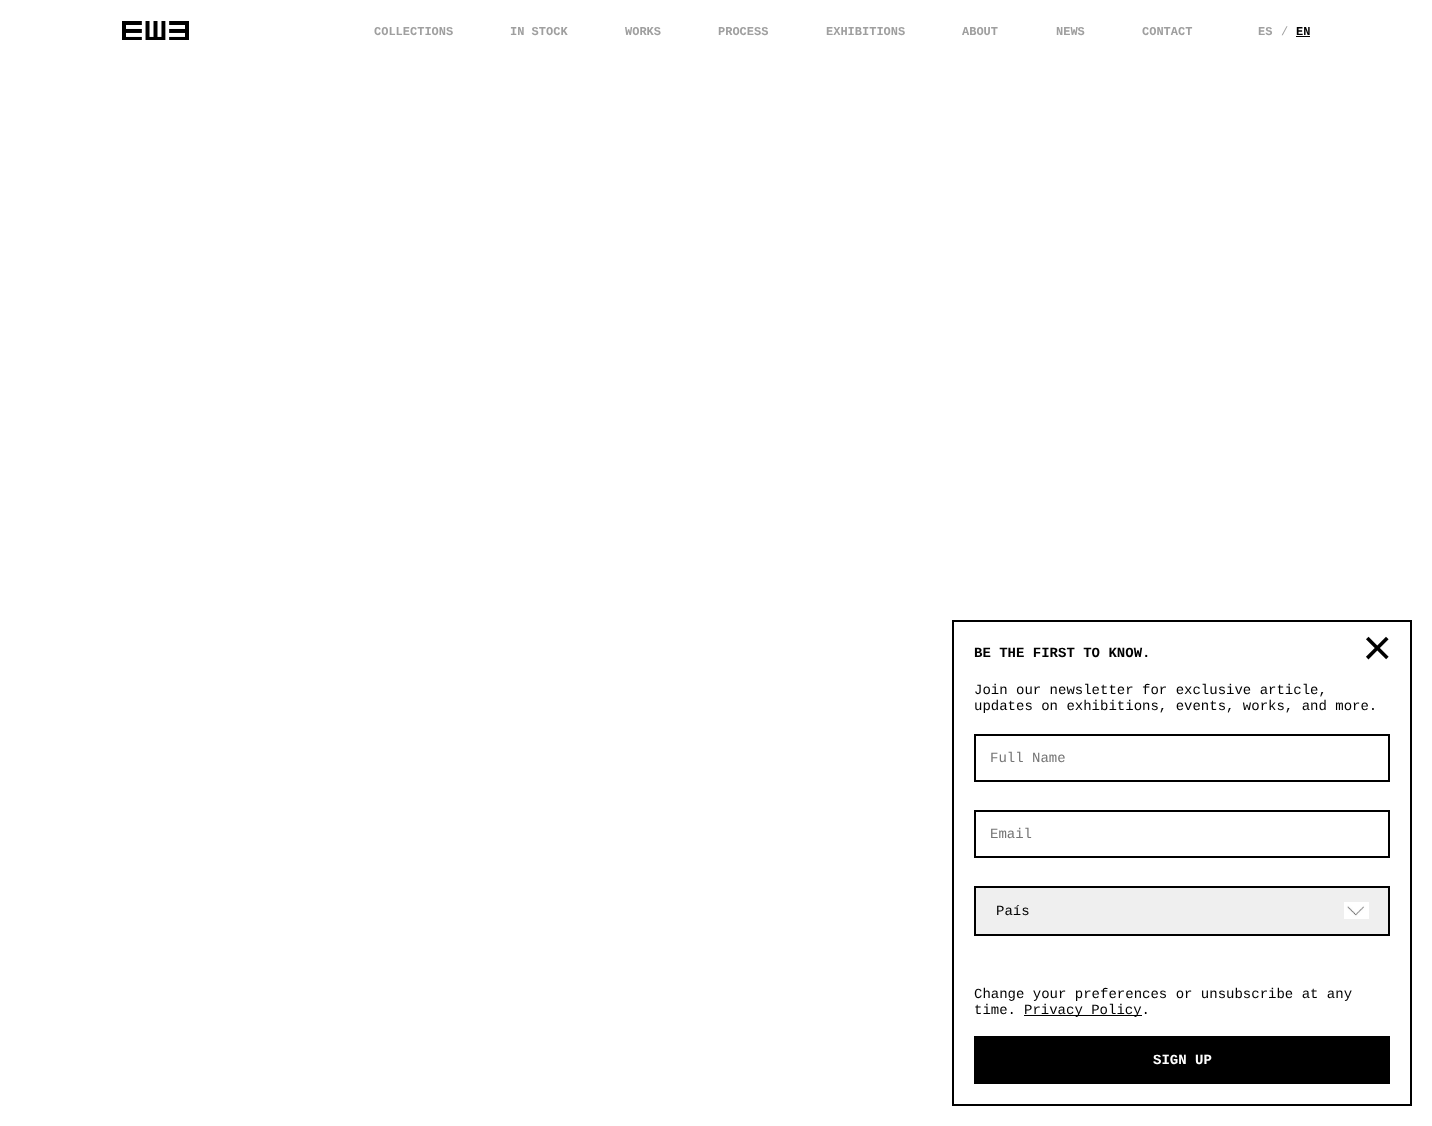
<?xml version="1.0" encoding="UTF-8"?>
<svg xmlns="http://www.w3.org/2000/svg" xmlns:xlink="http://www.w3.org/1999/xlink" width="1432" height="1126">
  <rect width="100%" height="100%" fill="#ffffff" />
  <image x="122" y="21" width="67" height="19" xlink:href="image1.png" />
  <rect x="1296" y="36" width="14" height="1" fill="#000000" />
  <rect x="953" y="621" width="458" height="484" fill="none" stroke="#000000" stroke-width="2" />
  <rect x="975" y="735" width="414" height="46" fill="none" stroke="#000000" stroke-width="2" />
  <rect x="975" y="811" width="414" height="46" fill="none" stroke="#000000" stroke-width="2" />
  <rect x="976" y="888" width="412" height="46" fill="#efefef" />
  <image x="1344" y="902" width="25" height="17" xlink:href="image2.png" />
  <rect x="975" y="887" width="414" height="48" fill="none" stroke="#000000" stroke-width="2" />
  <rect x="1024" y="1015" width="118" height="1" fill="#000000" />
  <rect x="974" y="1036" width="416" height="48" fill="#000000" />
  <text x="374" y="35" style="font-family: Liberation Mono; font-size: 12px; font-weight: bold; fill: #9f9f9f">COLLECTIONS</text>
  <text x="510" y="35" style="font-family: Liberation Mono; font-size: 12px; font-weight: bold; fill: #9f9f9f">IN STOCK</text>
  <text x="625" y="35" style="font-family: Liberation Mono; font-size: 12px; font-weight: bold; fill: #9f9f9f">WORKS</text>
  <text x="718" y="35" style="font-family: Liberation Mono; font-size: 12px; font-weight: bold; fill: #9f9f9f">PROCESS</text>
  <text x="826" y="35" style="font-family: Liberation Mono; font-size: 12px; font-weight: bold; fill: #9f9f9f">EXHIBITIONS</text>
  <text x="962" y="35" style="font-family: Liberation Mono; font-size: 12px; font-weight: bold; fill: #9f9f9f">ABOUT</text>
  <text x="1056" y="35" style="font-family: Liberation Mono; font-size: 12px; font-weight: bold; fill: #9f9f9f">NEWS</text>
  <text x="1142" y="35" style="font-family: Liberation Mono; font-size: 12px; font-weight: bold; fill: #9f9f9f">CONTACT</text>
  <text x="1258" y="35" style="font-family: Liberation Mono; font-size: 12px; font-weight: bold; fill: #9f9f9f">ES</text>
  <text x="1281" y="35" style="font-family: Liberation Mono; font-size: 12px; fill: #9f9f9f">/</text>
  <text x="1296" y="35" style="font-family: Liberation Mono; font-size: 12px; font-weight: bold; fill: #000000">EN</text>
  <text x="974" y="657" style="font-family: Liberation Mono; font-size: 14px; font-weight: bold; fill: #000000">BE THE FIRST TO KNOW.</text>
  <text x="974" y="694" style="font-family: Liberation Mono; font-size: 14px; fill: #000000">Join our newsletter for exclusive article,</text>
  <text x="974" y="710" style="font-family: Liberation Mono; font-size: 14px; fill: #000000">updates on exhibitions, events, works, and more.</text>
  <text x="990" y="762" style="font-family: Liberation Mono; font-size: 14px; fill: #757575">Full Name</text>
  <text x="990" y="838" style="font-family: Liberation Mono; font-size: 14px; fill: #757575">Email</text>
  <text x="996" y="915" style="font-family: Liberation Mono; font-size: 14px; fill: #000000">País</text>
  <text x="974" y="998" style="font-family: Liberation Mono; font-size: 14px; fill: #000000">Change your preferences or unsubscribe at any</text>
  <text x="974" y="1014" style="font-family: Liberation Mono; font-size: 14px; fill: #000000">time.</text>
  <text x="1024" y="1014" style="font-family: Liberation Mono; font-size: 14px; fill: #000000">Privacy Policy.</text>
  <text x="1153" y="1064" style="font-family: Liberation Mono; font-size: 14px; font-weight: bold; fill: #ffffff">SIGN UP</text>
  <text x="1362" y="665" style="font-family: Liberation Mono; font-size: 51px; fill: #000000">×</text>
</svg>
